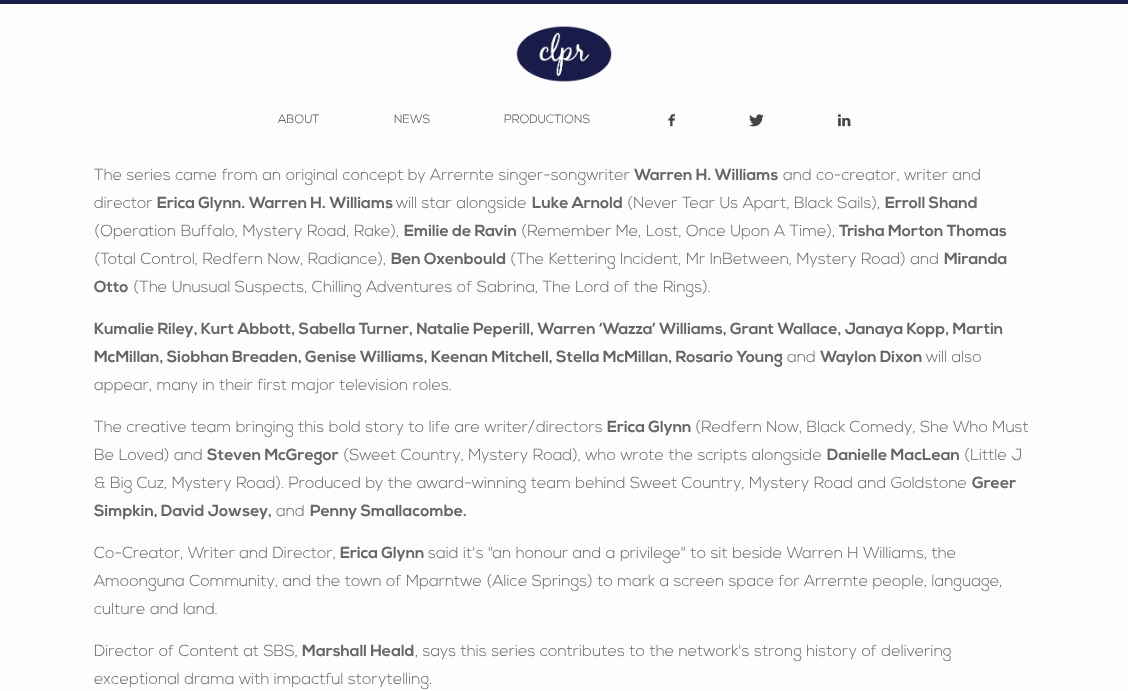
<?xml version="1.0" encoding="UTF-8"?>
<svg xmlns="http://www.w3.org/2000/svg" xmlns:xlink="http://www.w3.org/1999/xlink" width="1128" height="691">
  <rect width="100%" height="100%" fill="#fdfdfd" />
  <rect width="1128" height="4" fill="#191c49" />
  <image x="516" y="26" width="96" height="56" xlink:href="image1.png" />
  <image x="668" y="114" width="7" height="13" xlink:href="image2.png" />
  <image x="749" y="114" width="15" height="13" xlink:href="image3.png" />
  <image x="838" y="114" width="13" height="13" xlink:href="image4.png" />
  <text x="278" y="123" style="font-family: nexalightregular; font-size: 12px; fill: #444444">ABOUT</text>
  <text x="394" y="123" style="font-family: nexalightregular; font-size: 12px; fill: #444444">NEWS</text>
  <text x="504" y="123" style="font-family: nexalightregular; font-size: 12px; fill: #444444">PRODUCTIONS</text>
  <text x="94" y="180" style="font-family: nexalightregular; font-size: 16px; fill: #666666">The series came from an original concept by Arrernte singer-songwriter</text>
  <text x="634" y="180" style="font-family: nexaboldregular; font-size: 16px; font-weight: bold; fill: #666666">Warren H. Williams</text>
  <text x="783" y="180" style="font-family: nexalightregular; font-size: 16px; fill: #666666">and co-creator, writer and</text>
  <text x="94" y="208" style="font-family: nexalightregular; font-size: 16px; fill: #666666">director</text>
  <text x="157" y="208" style="font-family: nexaboldregular; font-size: 16px; font-weight: bold; fill: #666666">Erica Glynn. Warren H. Williams</text>
  <text x="396" y="208" style="font-family: nexalightregular; font-size: 16px; fill: #666666">will star alongside</text>
  <text x="532" y="208" style="font-family: nexaboldregular; font-size: 16px; font-weight: bold; fill: #666666">Luke Arnold</text>
  <text x="627" y="208" style="font-family: nexalightregular; font-size: 16px; fill: #666666">(Never Tear Us Apart, Black Sails),</text>
  <text x="885" y="208" style="font-family: nexaboldregular; font-size: 16px; font-weight: bold; fill: #666666">Erroll Shand</text>
  <text x="94" y="236" style="font-family: nexalightregular; font-size: 16px; fill: #666666">(Operation Buffalo, Mystery Road, Rake),</text>
  <text x="404" y="236" style="font-family: nexaboldregular; font-size: 16px; font-weight: bold; fill: #666666">Emilie de Ravin</text>
  <text x="521" y="236" style="font-family: nexalightregular; font-size: 16px; fill: #666666">(Remember Me, Lost, Once Upon A Time),</text>
  <text x="839" y="236" style="font-family: nexaboldregular; font-size: 16px; font-weight: bold; fill: #666666">Trisha Morton Thomas</text>
  <text x="94" y="264" style="font-family: nexalightregular; font-size: 16px; fill: #666666">(Total Control, Redfern Now, Radiance),</text>
  <text x="391" y="264" style="font-family: nexaboldregular; font-size: 16px; font-weight: bold; fill: #666666">Ben Oxenbould</text>
  <text x="510" y="264" style="font-family: nexalightregular; font-size: 16px; fill: #666666">(The Kettering Incident, Mr InBetween, Mystery Road) and</text>
  <text x="944" y="264" style="font-family: nexaboldregular; font-size: 16px; font-weight: bold; fill: #666666">Miranda</text>
  <text x="94" y="292" style="font-family: nexaboldregular; font-size: 16px; font-weight: bold; fill: #666666">Otto</text>
  <text x="133" y="292" style="font-family: nexalightregular; font-size: 16px; fill: #666666">(The Unusual Suspects, Chilling Adventures of Sabrina, The Lord of the Rings).</text>
  <text x="94" y="334" style="font-family: nexaboldregular; font-size: 16px; font-weight: bold; fill: #666666">Kumalie Riley, Kurt Abbott, Sabella Turner, Natalie Peperill, Warren ‘Wazza’ Williams, Grant Wallace, Janaya Kopp, Martin</text>
  <text x="94" y="362" style="font-family: nexaboldregular; font-size: 16px; font-weight: bold; fill: #666666">McMillan, Siobhan Breaden, Genise Williams, Keenan Mitchell, Stella McMillan, Rosario Young</text>
  <text x="787" y="362" style="font-family: nexalightregular; font-size: 16px; fill: #666666">and</text>
  <text x="820" y="362" style="font-family: nexaboldregular; font-size: 16px; font-weight: bold; fill: #666666">Waylon Dixon</text>
  <text x="926" y="362" style="font-family: nexalightregular; font-size: 16px; fill: #666666">will also</text>
  <text x="94" y="390" style="font-family: nexalightregular; font-size: 16px; fill: #666666">appear, many in their first major television roles.</text>
  <text x="94" y="432" style="font-family: nexalightregular; font-size: 16px; fill: #666666">The creative team bringing this bold story to life are writer/directors</text>
  <text x="607" y="432" style="font-family: nexaboldregular; font-size: 16px; font-weight: bold; fill: #666666">Erica Glynn</text>
  <text x="695" y="432" style="font-family: nexalightregular; font-size: 16px; fill: #666666">(Redfern Now, Black Comedy, She Who Must</text>
  <text x="94" y="460" style="font-family: nexalightregular; font-size: 16px; fill: #666666">Be Loved) and</text>
  <text x="207" y="460" style="font-family: nexaboldregular; font-size: 16px; font-weight: bold; fill: #666666">Steven McGregor</text>
  <text x="343" y="460" style="font-family: nexalightregular; font-size: 16px; fill: #666666">(Sweet Country, Mystery Road), who wrote the scripts alongside</text>
  <text x="827" y="460" style="font-family: nexaboldregular; font-size: 16px; font-weight: bold; fill: #666666">Danielle MacLean</text>
  <text x="964" y="460" style="font-family: nexalightregular; font-size: 16px; fill: #666666">(Little J</text>
  <text x="94" y="488" style="font-family: nexalightregular; font-size: 16px; fill: #666666">&amp; Big Cuz, Mystery Road). Produced by the award-winning team behind Sweet Country, Mystery Road and Goldstone</text>
  <text x="972" y="488" style="font-family: nexaboldregular; font-size: 16px; font-weight: bold; fill: #666666">Greer</text>
  <text x="94" y="516" style="font-family: nexaboldregular; font-size: 16px; font-weight: bold; fill: #666666">Simpkin, David Jowsey,</text>
  <text x="276" y="516" style="font-family: nexalightregular; font-size: 16px; fill: #666666">and</text>
  <text x="310" y="516" style="font-family: nexaboldregular; font-size: 16px; font-weight: bold; fill: #666666">Penny Smallacombe.</text>
  <text x="94" y="558" style="font-family: nexalightregular; font-size: 16px; fill: #666666">Co-Creator, Writer and Director,</text>
  <text x="340" y="558" style="font-family: nexaboldregular; font-size: 16px; font-weight: bold; fill: #666666">Erica Glynn</text>
  <text x="428" y="558" style="font-family: nexalightregular; font-size: 16px; fill: #666666">said it's "an honour and a privilege" to sit beside Warren H Williams, the</text>
  <text x="94" y="586" style="font-family: nexalightregular; font-size: 16px; fill: #666666">Amoonguna Community, and the town of Mparntwe (Alice Springs) to mark a screen space for Arrernte people, language,</text>
  <text x="94" y="614" style="font-family: nexalightregular; font-size: 16px; fill: #666666">culture and land.</text>
  <text x="94" y="656" style="font-family: nexalightregular; font-size: 16px; fill: #666666">Director of Content at SBS,</text>
  <text x="302" y="656" style="font-family: nexaboldregular; font-size: 16px; font-weight: bold; fill: #666666">Marshall Heald</text>
  <text x="415" y="656" style="font-family: nexalightregular; font-size: 16px; fill: #666666">, says this series contributes to the network's strong history of delivering</text>
  <text x="94" y="684" style="font-family: nexalightregular; font-size: 16px; fill: #666666">exceptional drama with impactful storytelling.</text>
</svg>
